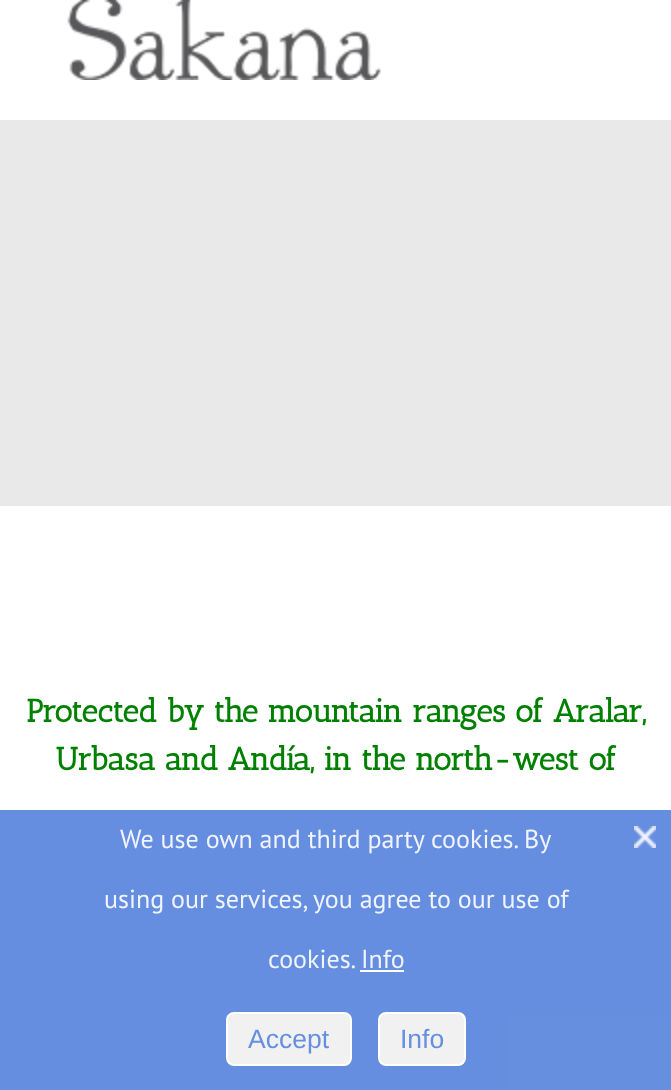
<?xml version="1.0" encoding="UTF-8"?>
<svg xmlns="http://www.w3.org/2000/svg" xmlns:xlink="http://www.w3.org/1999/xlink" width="671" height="1090">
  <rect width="100%" height="100%" fill="#ffffff" />
  <image x="67" y="0" width="314" height="80" xlink:href="image1.png" />
  <rect y="120" width="671" height="386" fill="#e9e9e9" />
  <rect y="810" width="671" height="280" fill="#5582dd" fill-opacity="0.9" />
  <rect x="360" y="970" width="44" height="2" fill="#ffffff" />
  <image x="634" y="826" width="22" height="22" xlink:href="image2.png" />
  <rect x="227" y="1013" width="124" height="52" rx="7" fill="#f1f1f1" stroke="#ffffff" stroke-width="2" />
  <rect x="379" y="1013" width="86" height="52" rx="7" fill="#f1f1f1" stroke="#ffffff" stroke-width="2" />
  <text x="26" y="722" style="font-family: Antic Slab; font-size: 32px; font-weight: bold; fill: #008000">Protected by the mountain ranges of Aralar,</text>
  <text x="55" y="770" style="font-family: Antic Slab; font-size: 32px; font-weight: bold; fill: #008000">Urbasa and Andía, in the north-west of</text>
  <text x="120" y="848" style="font-family: PT Sans; font-size: 26px; fill: #f0f4fc">We use own and third party cookies. By</text>
  <text x="104" y="908" style="font-family: PT Sans; font-size: 26px; fill: #f0f4fc">using our services, you agree to our use of</text>
  <text x="268" y="968" style="font-family: PT Sans; font-size: 26px; fill: #f0f4fc">cookies. Info</text>
  <text x="248" y="1048" style="font-family: Liberation Sans; font-size: 26.5px; fill: #668fe0">Accept</text>
  <text x="400" y="1048" style="font-family: Liberation Sans; font-size: 26.5px; fill: #668fe0">Info</text>
</svg>
